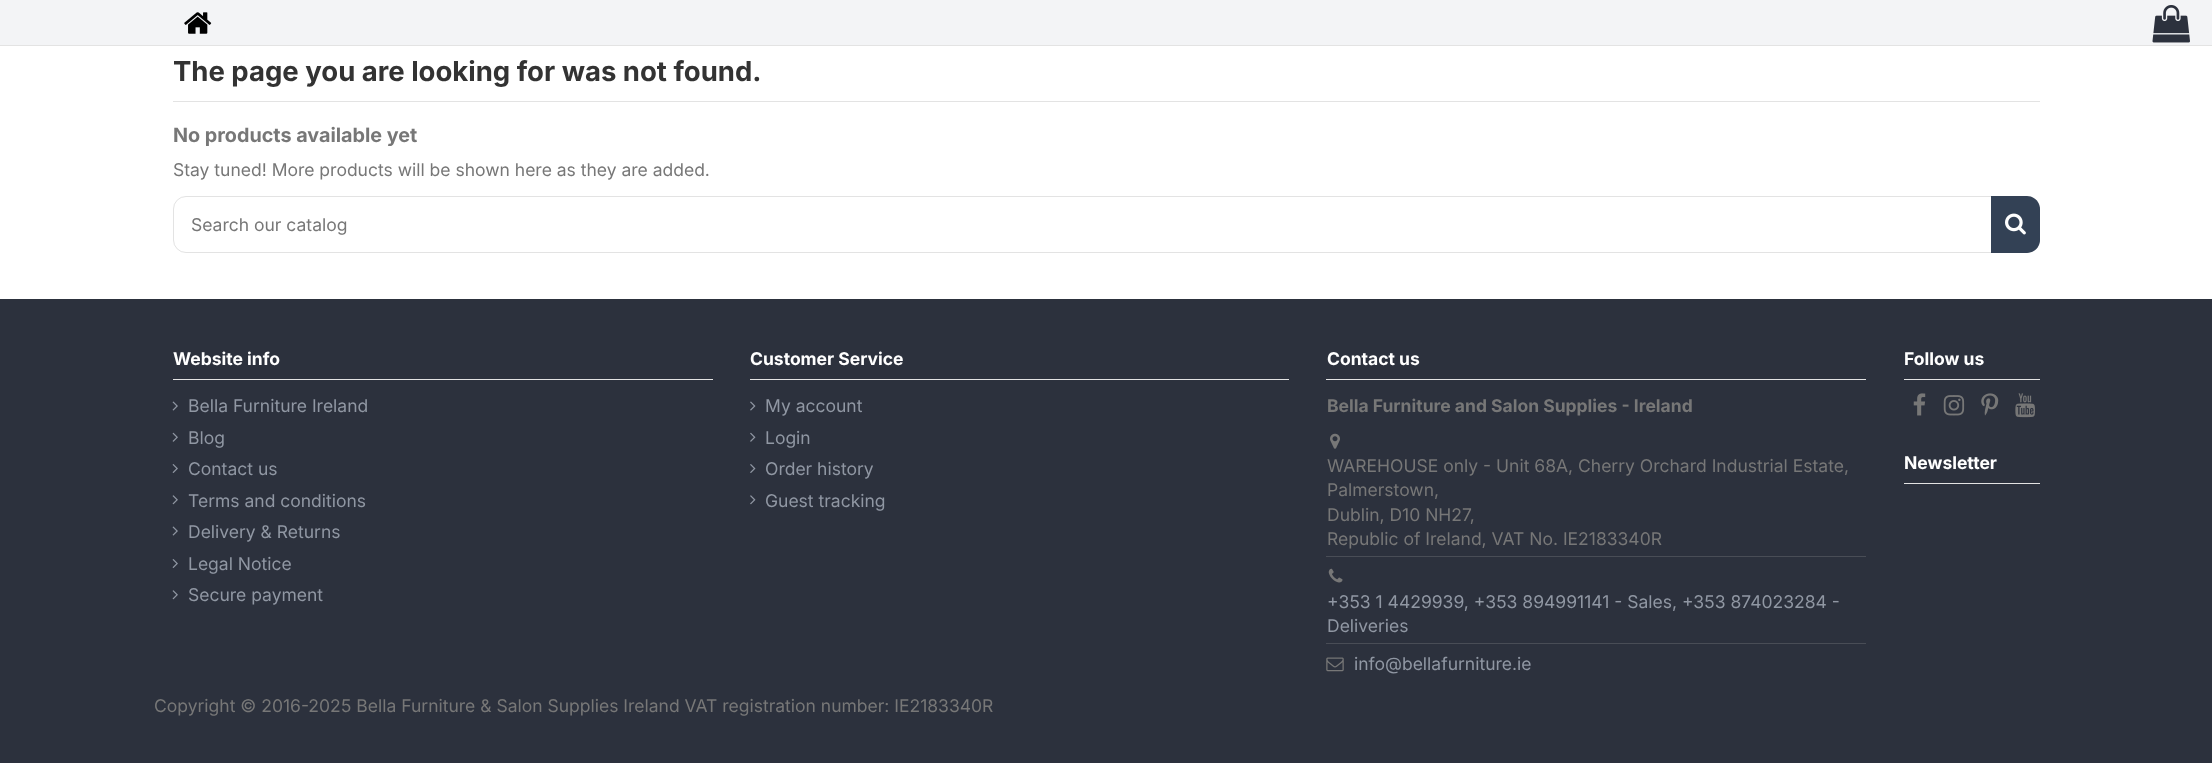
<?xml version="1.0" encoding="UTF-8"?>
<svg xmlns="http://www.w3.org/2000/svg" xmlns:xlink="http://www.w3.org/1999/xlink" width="2212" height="763">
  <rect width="100%" height="100%" fill="#ffffff" />
  <rect width="2212" height="45" fill="#f3f4f6" />
  <image x="2152" y="5" width="38" height="38" xlink:href="image1.png" />
  <rect y="45" width="2212" height="1" fill="#e3e3e3" />
  <image x="184" y="12" width="28" height="22" xlink:href="image2.png" />
  <rect x="173" y="101" width="1867" height="1" fill="#e3e3e3" />
  <rect x="173.5" y="196.5" width="1866" height="56" rx="12.5" fill="none" stroke="#e3e3e3" />
  <path d="M 1991 196 h 36 c 7 0 13 6 13 13 v 31 c 0 7 -6 13 -13 13 h -36 z" fill="#334155" />
  <image x="2005" y="213" width="21" height="22" xlink:href="image3.png" />
  <rect y="299" width="2212" height="464" fill="#2c313d" />
  <rect x="173" y="379" width="540" height="1" fill="#e3e3e3" />
  <image x="172" y="401" width="6" height="10" xlink:href="image4.png" />
  <image x="172" y="432" width="6" height="10" xlink:href="image5.png" />
  <image x="172" y="464" width="6" height="9" xlink:href="image6.png" />
  <image x="172" y="495" width="6" height="10" xlink:href="image7.png" />
  <image x="172" y="526" width="6" height="10" xlink:href="image4.png" />
  <image x="172" y="559" width="6" height="9" xlink:href="image6.png" />
  <image x="172" y="590" width="6" height="10" xlink:href="image7.png" />
  <rect x="750" y="379" width="539" height="1" fill="#e3e3e3" />
  <image x="750" y="401" width="6" height="10" xlink:href="image8.png" />
  <image x="750" y="432" width="6" height="10" xlink:href="image9.png" />
  <image x="750" y="464" width="6" height="9" xlink:href="image10.png" />
  <image x="750" y="495" width="6" height="10" xlink:href="image11.png" />
  <rect x="1326" y="379" width="540" height="1" fill="#e3e3e3" />
  <image x="1330" y="433" width="10" height="16" xlink:href="image12.png" />
  <rect x="1326" y="556" width="540" height="1" fill="#494d56" />
  <image x="1328" y="568" width="15" height="15" xlink:href="image13.png" />
  <rect x="1326" y="643" width="540" height="1" fill="#494d56" />
  <image x="1326" y="657" width="18" height="15" xlink:href="image14.png" />
  <rect x="1904" y="379" width="136" height="1" fill="#e3e3e3" />
  <image x="1913" y="393" width="13" height="23" xlink:href="image15.png" />
  <image x="1943" y="395" width="22" height="21" xlink:href="image16.png" />
  <image x="1981" y="393" width="18" height="23" xlink:href="image17.png" />
  <image x="2015" y="393" width="20" height="25" xlink:href="image18.png" />
  <rect x="1904" y="483" width="136" height="1" fill="#e3e3e3" />
  <text x="173" y="81" style="font-family: Inter; font-size: 27.5px; font-weight: bold; fill: #333333">The page you are looking for was not found.</text>
  <text x="173" y="142" style="font-family: Inter; font-size: 19.75px; font-weight: bold; fill: #777777">No products available yet</text>
  <text x="173" y="176" style="font-family: Inter; font-size: 17.5px; fill: #777777">Stay tuned! More products will be shown here as they are added.</text>
  <text x="191" y="231" style="font-family: Inter; font-size: 17.5px; fill: #777777">Search our catalog</text>
  <text x="173" y="365" style="font-family: Inter; font-size: 17.5px; font-weight: bold; fill: #ffffff">Website info</text>
  <text x="188" y="412" style="font-family: Inter; font-size: 17.5px; fill: #9097a3">Bella Furniture Ireland</text>
  <text x="188" y="444" style="font-family: Inter; font-size: 17.5px; fill: #9097a3">Blog</text>
  <text x="188" y="475" style="font-family: Inter; font-size: 17.5px; fill: #9097a3">Contact us</text>
  <text x="188" y="507" style="font-family: Inter; font-size: 17.5px; fill: #9097a3">Terms and conditions</text>
  <text x="188" y="538" style="font-family: Inter; font-size: 17.5px; fill: #9097a3">Delivery &amp; Returns</text>
  <text x="188" y="570" style="font-family: Inter; font-size: 17.5px; fill: #9097a3">Legal Notice</text>
  <text x="188" y="601" style="font-family: Inter; font-size: 17.5px; fill: #9097a3">Secure payment</text>
  <text x="750" y="365" style="font-family: Inter; font-size: 17.5px; font-weight: bold; fill: #ffffff">Customer Service</text>
  <text x="765" y="412" style="font-family: Inter; font-size: 17.5px; fill: #9097a3">My account</text>
  <text x="765" y="444" style="font-family: Inter; font-size: 17.5px; fill: #9097a3">Login</text>
  <text x="765" y="475" style="font-family: Inter; font-size: 17.5px; fill: #9097a3">Order history</text>
  <text x="765" y="507" style="font-family: Inter; font-size: 17.5px; fill: #9097a3">Guest tracking</text>
  <text x="1327" y="365" style="font-family: Inter; font-size: 17.5px; font-weight: bold; fill: #ffffff">Contact us</text>
  <text x="1327" y="412" style="font-family: Inter; font-size: 17.5px; font-weight: bold; fill: #777777">Bella Furniture and Salon Supplies - Ireland</text>
  <text x="1327" y="472" style="font-family: Inter; font-size: 17.5px; fill: #777777">WAREHOUSE only - Unit 68A, Cherry Orchard Industrial Estate,</text>
  <text x="1327" y="496" style="font-family: Inter; font-size: 17.5px; fill: #777777">Palmerstown,</text>
  <text x="1327" y="521" style="font-family: Inter; font-size: 17.5px; fill: #777777">Dublin, D10 NH27,</text>
  <text x="1327" y="545" style="font-family: Inter; font-size: 17.5px; fill: #777777">Republic of Ireland, VAT No. IE2183340R</text>
  <text x="1327" y="608" style="font-family: Inter; font-size: 17.5px; fill: #9097a3">+353 1 4429939, +353 894991141 - Sales, +353 874023284 -</text>
  <text x="1327" y="632" style="font-family: Inter; font-size: 17.5px; fill: #9097a3">Deliveries</text>
  <text x="1354" y="670" style="font-family: Inter; font-size: 17.5px; fill: #9097a3">info@bellafurniture.ie</text>
  <text x="1904" y="365" style="font-family: Inter; font-size: 17.5px; font-weight: bold; fill: #ffffff">Follow us</text>
  <text x="1904" y="469" style="font-family: Inter; font-size: 17.5px; font-weight: bold; fill: #ffffff">Newsletter</text>
  <text x="154" y="712" style="font-family: Inter; font-size: 17.5px; fill: #777777">Copyright © 2016-2025 Bella Furniture &amp; Salon Supplies Ireland VAT registration number: IE2183340R</text>
</svg>
